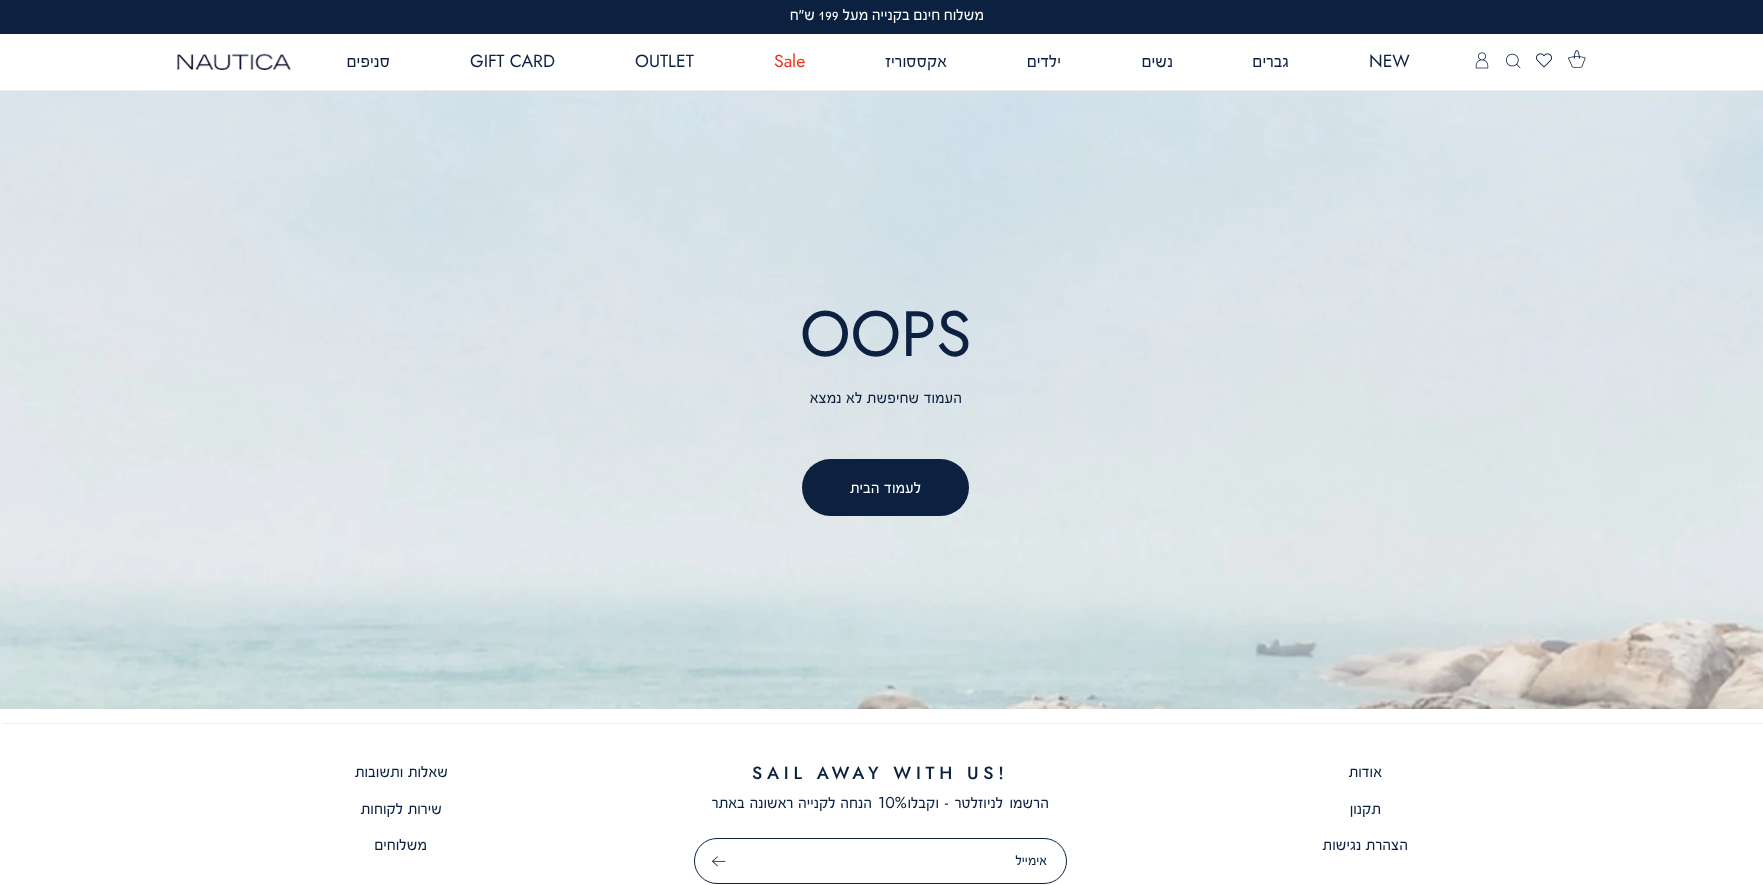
<?xml version="1.0" encoding="UTF-8"?>
<svg xmlns="http://www.w3.org/2000/svg" xmlns:xlink="http://www.w3.org/1999/xlink" width="1763" height="885">
  <rect width="100%" height="100%" fill="#ffffff" />
  <image x="0" y="91" width="1763" height="618" xlink:href="image1.png" />
  <rect y="90" width="1763" height="1" fill="#eeeeee" />
  <rect width="1763" height="34" fill="#0c2140" />
  <image x="1568" y="50" width="18" height="18" xlink:href="image2.png" />
  <image x="1536" y="53" width="16" height="15" xlink:href="image3.png" />
  <image x="1506" y="53" width="15" height="16" xlink:href="image4.png" />
  <image x="1475" y="52" width="14" height="17" xlink:href="image5.png" />
  <image x="177" y="53" width="114" height="17" xlink:href="image6.png" />
  <rect x="802" y="459" width="167" height="57" rx="28.5" fill="#0c2140" />
  <rect x="4" y="723" width="1759" height="1" fill="#eeeeee" />
  <rect x="694.5" y="838.5" width="372" height="45" rx="22.5" fill="none" stroke="#0c2140" />
  <image x="712" y="856" width="14" height="11" xlink:href="image7.png" />
  <text x="984" y="20" style="font-family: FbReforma; font-size: 16px; direction: rtl; fill: #ffffff">משלוח חינם בקנייה מעל</text>
  <text x="818" y="20" style="font-family: FbReforma; font-size: 16px; fill: #ffffff">199</text>
  <text x="815" y="20" style="font-family: FbReforma; font-size: 16px; direction: rtl; fill: #ffffff">ש"ח</text>
  <text x="1369" y="67" style="font-family: Jost; font-size: 17.6px; fill: #0c2140">NEW</text>
  <text x="1289" y="67" style="font-family: FbReforma; font-size: 17.6px; direction: rtl; fill: #0c2140">גברים</text>
  <text x="1173" y="67" style="font-family: FbReforma; font-size: 17.6px; direction: rtl; fill: #0c2140">נשים</text>
  <text x="1061" y="67" style="font-family: FbReforma; font-size: 17.6px; direction: rtl; fill: #0c2140">ילדים</text>
  <text x="947" y="67" style="font-family: FbReforma; font-size: 17.6px; direction: rtl; fill: #0c2140">אקססוריז</text>
  <text x="774" y="67" style="font-family: Jost; font-size: 17.6px; fill: #ea3522">Sale</text>
  <text x="635" y="67" style="font-family: Jost; font-size: 17.6px; fill: #0c2140">OUTLET</text>
  <text x="470" y="67" style="font-family: Jost; font-size: 17.6px; fill: #0c2140">GIFT CARD</text>
  <text x="390" y="67" style="font-family: FbReforma; font-size: 17.6px; direction: rtl; fill: #0c2140">סניפים</text>
  <text x="800" y="356" style="font-family: Jost; font-size: 64px; fill: #0c2140">OOPS</text>
  <text x="962" y="403" word-spacing="1" style="font-family: FbReforma; font-size: 16px; direction: rtl; fill: #0c2140">העמוד שחיפשת לא נמצא</text>
  <text x="921" y="493" word-spacing="1" style="font-family: FbReforma; font-size: 16px; direction: rtl; fill: #ffffff">לעמוד הבית</text>
  <text x="1382" y="777" style="font-family: FbReforma; font-size: 16px; direction: rtl; fill: #0c2140">אודות</text>
  <text x="1381" y="814" style="font-family: FbReforma; font-size: 16px; direction: rtl; fill: #0c2140">תקנון</text>
  <text x="1408" y="850" word-spacing="1" style="font-family: FbReforma; font-size: 16px; direction: rtl; fill: #0c2140">הצהרת נגישות</text>
  <text x="752" y="779" style="font-family: Jost; font-size: 17.6px; font-weight: 500; letter-spacing: 4.75px; fill: #0c2140">SAIL AWAY WITH US!</text>
  <text x="1049" y="808" style="font-family: FbReforma; font-size: 16px; direction: rtl; fill: #0c2140">הרשמו</text>
  <text x="1003" y="808" style="font-family: FbReforma; font-size: 16px; direction: rtl; fill: #0c2140">לניוזלטר</text>
  <text x="948" y="808" style="font-family: Jost; font-size: 16px; direction: rtl; fill: #0c2140">-</text>
  <text x="939" y="808" style="font-family: FbReforma; font-size: 16px; direction: rtl; fill: #0c2140">וקבלו</text>
  <text x="878" y="808" style="font-family: Jost; font-size: 16px; fill: #0c2140">10%</text>
  <text x="872" y="808" word-spacing="1" style="font-family: FbReforma; font-size: 16px; direction: rtl; fill: #0c2140">הנחה לקנייה ראשונה באתר</text>
  <text x="1047" y="865" style="font-family: FbReforma; font-size: 14px; direction: rtl; fill: #0c2140">אימייל</text>
  <text x="448" y="777" word-spacing="1" style="font-family: FbReforma; font-size: 16px; direction: rtl; fill: #0c2140">שאלות ותשובות</text>
  <text x="442" y="814" word-spacing="1" style="font-family: FbReforma; font-size: 16px; direction: rtl; fill: #0c2140">שירות לקוחות</text>
  <text x="427" y="850" style="font-family: FbReforma; font-size: 16px; direction: rtl; fill: #0c2140">משלוחים</text>
</svg>
